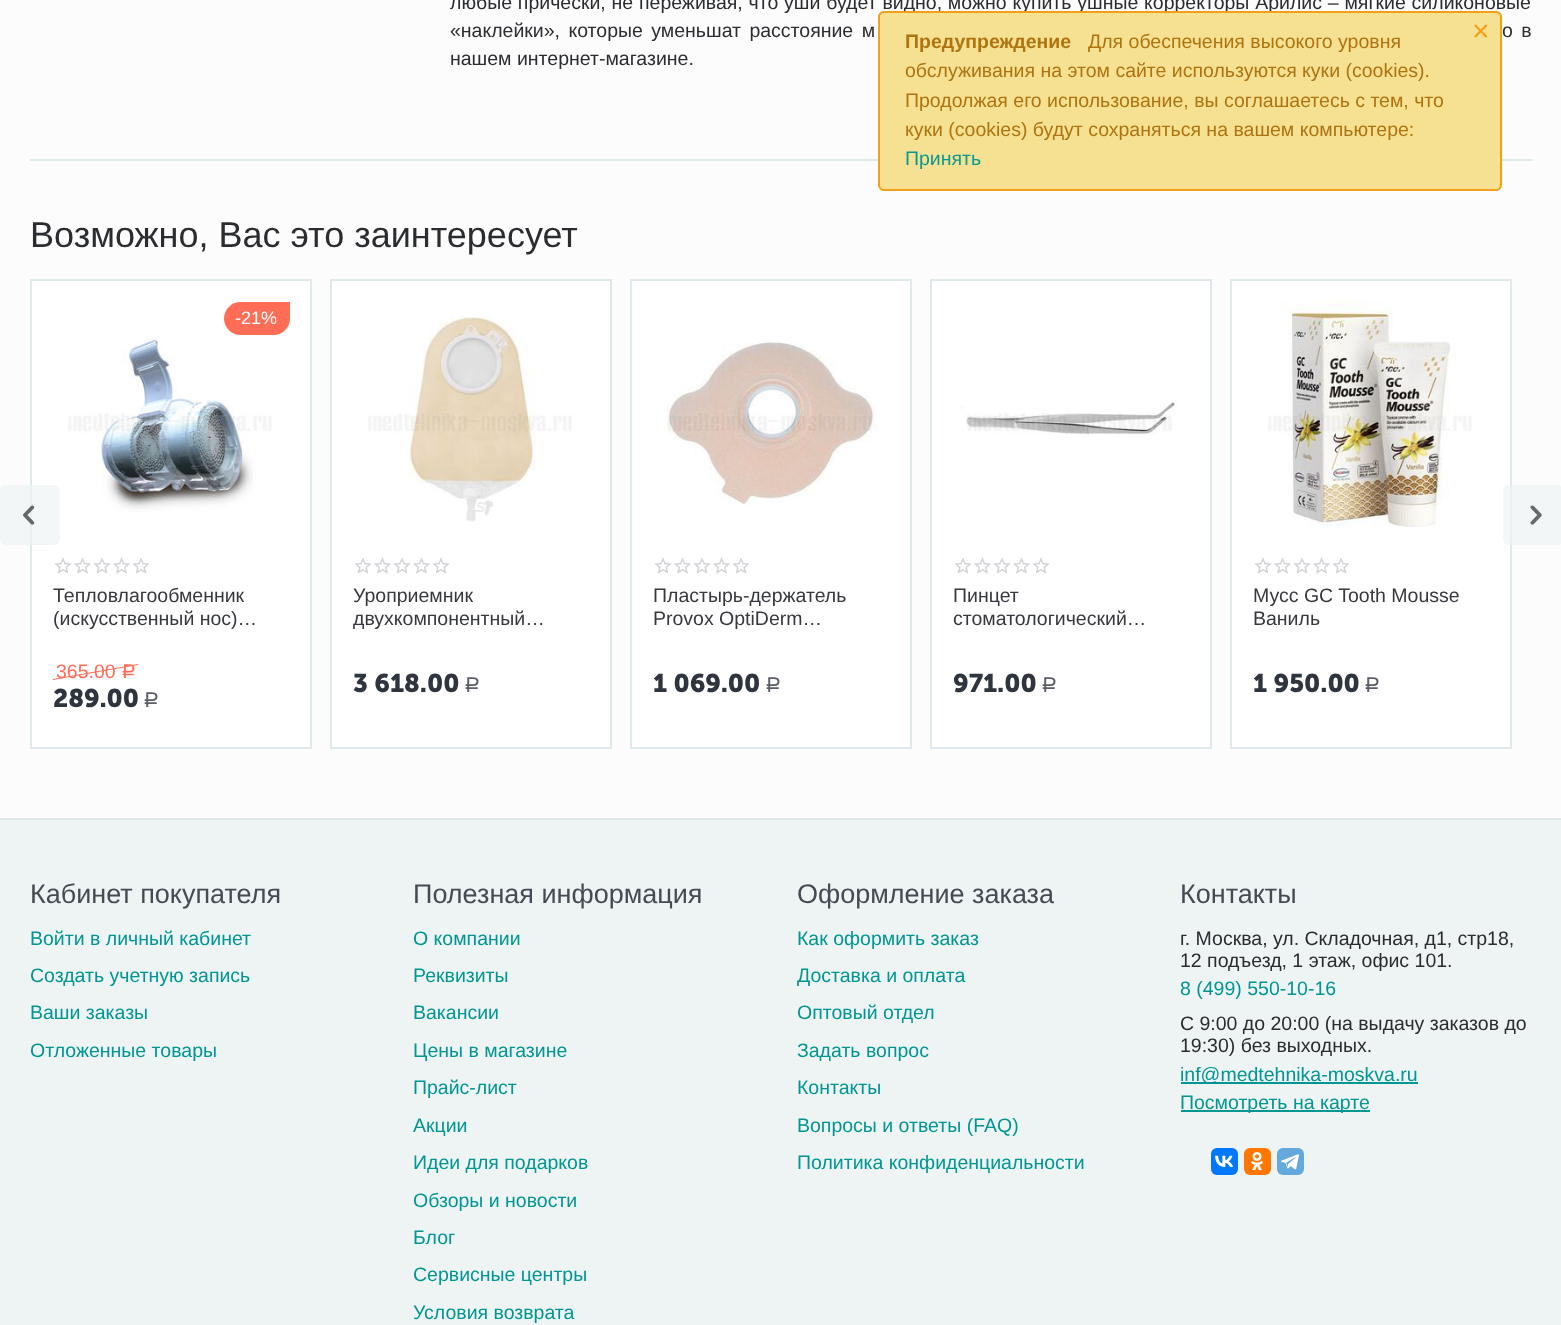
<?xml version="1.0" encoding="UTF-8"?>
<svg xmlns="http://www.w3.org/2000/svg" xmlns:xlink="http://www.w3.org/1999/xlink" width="1561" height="1325">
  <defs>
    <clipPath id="clip1"><rect x="353" y="584" width="237" height="48" /></clipPath>
  </defs>
  <rect width="100%" height="100%" fill="#fcfcfc" />
  <rect x="30" y="159" width="1502" height="2" fill="#dfe8ea" />
  <rect x="31" y="280" width="280" height="468" fill="#ffffff" stroke="#dfe8ea" stroke-width="2" />
  <path d="M 240.5 302 h 49.5 v 16.5 c 0 9 -7.5 16.5 -16.5 16.5 h -33 c -9 0 -16.5 -7.5 -16.5 -16.5 c 0 -9 7.5 -16.5 16.5 -16.5 z" fill="#ff6d57" />
  <image x="68" y="336" width="204" height="176" xlink:href="image1.png" />
  <image x="54" y="557" width="18" height="17" xlink:href="image2.png" />
  <image x="74" y="557" width="17" height="17" xlink:href="image3.png" />
  <image x="93" y="557" width="18" height="17" xlink:href="image2.png" />
  <image x="113" y="557" width="17" height="17" xlink:href="image3.png" />
  <image x="132" y="557" width="18" height="17" xlink:href="image2.png" />
  <path d="M 53 679 l 85 -15 v 1 l -85 15 z" fill="#ff6d57" />
  <rect x="331" y="280" width="280" height="468" fill="#ffffff" stroke="#dfe8ea" stroke-width="2" />
  <image x="368" y="315" width="204" height="207" xlink:href="image4.png" />
  <image x="354" y="557" width="18" height="17" xlink:href="image2.png" />
  <image x="374" y="557" width="17" height="17" xlink:href="image3.png" />
  <image x="393" y="557" width="18" height="17" xlink:href="image2.png" />
  <image x="413" y="557" width="17" height="17" xlink:href="image3.png" />
  <image x="432" y="557" width="18" height="17" xlink:href="image2.png" />
  <rect x="631" y="280" width="280" height="468" fill="#ffffff" stroke="#dfe8ea" stroke-width="2" />
  <image x="667" y="340" width="210" height="165" xlink:href="image5.png" />
  <image x="654" y="557" width="18" height="17" xlink:href="image2.png" />
  <image x="674" y="557" width="17" height="17" xlink:href="image3.png" />
  <image x="693" y="557" width="18" height="17" xlink:href="image2.png" />
  <image x="713" y="557" width="17" height="17" xlink:href="image3.png" />
  <image x="732" y="557" width="18" height="17" xlink:href="image2.png" />
  <rect x="931" y="280" width="280" height="468" fill="#ffffff" stroke="#dfe8ea" stroke-width="2" />
  <image x="961" y="400" width="216" height="35" xlink:href="image6.png" />
  <image x="954" y="557" width="18" height="17" xlink:href="image2.png" />
  <image x="974" y="557" width="17" height="17" xlink:href="image3.png" />
  <image x="993" y="557" width="18" height="17" xlink:href="image2.png" />
  <image x="1013" y="557" width="17" height="17" xlink:href="image3.png" />
  <image x="1032" y="557" width="18" height="17" xlink:href="image2.png" />
  <rect x="1231" y="280" width="280" height="468" fill="#ffffff" stroke="#dfe8ea" stroke-width="2" />
  <image x="1268" y="301" width="204" height="226" xlink:href="image7.png" />
  <image x="1254" y="557" width="18" height="17" xlink:href="image2.png" />
  <image x="1274" y="557" width="17" height="17" xlink:href="image3.png" />
  <image x="1293" y="557" width="18" height="17" xlink:href="image2.png" />
  <image x="1313" y="557" width="17" height="17" xlink:href="image3.png" />
  <image x="1332" y="557" width="18" height="17" xlink:href="image2.png" />
  <rect y="485" width="60" height="60" rx="6" fill="#eef3f4" fill-opacity="0.7" />
  <image x="23" y="505" width="12" height="20" xlink:href="image8.png" />
  <rect x="1503" y="485" width="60" height="60" rx="6" fill="#eef3f4" fill-opacity="0.7" />
  <image x="1530" y="505" width="12" height="20" xlink:href="image9.png" />
  <rect y="820" width="1561" height="505" fill="#eef3f4" />
  <rect y="818" width="1561" height="2" fill="#dfe8ea" />
  <rect x="1181" y="1082" width="237" height="2" fill="#009691" />
  <rect x="1181" y="1110" width="189" height="2" fill="#009691" />
  <rect x="1211" y="1148" width="27" height="27" rx="6" fill="#0077ff" />
  <image x="1215" y="1155" width="18" height="12" xlink:href="image10.png" />
  <rect x="1244" y="1148" width="27" height="27" rx="6" fill="#ff7700" />
  <image x="1251" y="1152" width="12" height="18" xlink:href="image11.png" />
  <rect x="1277" y="1148" width="27" height="27" rx="6" fill="#64a9dc" />
  <image x="1281" y="1154" width="18" height="16" xlink:href="image12.png" />
  <text x="450" y="9" word-spacing="0.4" style="font-family: Liberation Sans; font-size: 19.5px; fill: #2a2c30">любые прически, не переживая, что уши будет видно, можно купить ушные корректоры Арилис – мягкие силиконовые</text>
  <text x="450" y="37" word-spacing="3" style="font-family: Liberation Sans; font-size: 19.5px; fill: #2a2c30">«наклейки», которые уменьшат расстояние м</text>
  <text x="1502" y="37" word-spacing="3" style="font-family: Liberation Sans; font-size: 19.5px; fill: #2a2c30">о в</text>
  <text x="450" y="65" style="font-family: Liberation Sans; font-size: 19.5px; fill: #2a2c30">нашем интернет-магазине.</text>
  <text x="30" y="247" style="font-family: Liberation Sans; font-size: 36px; fill: #2a2c30">Возможно, Вас это заинтересует</text>
  <text x="235" y="324" style="font-family: Liberation Sans; font-size: 18px; fill: #ffffff">-21%</text>
  <text x="53" y="602" style="font-family: Liberation Sans; font-size: 19.5px; fill: #36383e">Тепловлагообменник</text>
  <text x="53" y="625" style="font-family: Liberation Sans; font-size: 19.5px; fill: #36383e">(искусственный нос)…</text>
  <text x="56" y="678" style="font-family: Liberation Sans; font-size: 19.5px; fill: #ff6d57">365.00</text>
  <text x="121" y="678" style="font-family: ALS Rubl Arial; font-size: 19.5px; fill: #ff6d57">Р</text>
  <text x="53" y="707" style="font-family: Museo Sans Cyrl; font-size: 25.5px; font-weight: bold; fill: #2f353e">289.00</text>
  <text x="143" y="707" style="font-family: ALS Rubl Arial; font-size: 21px; fill: #5a5e66">Р</text>
  <text x="353" y="602" style="font-family: Liberation Sans; font-size: 19.5px; fill: #36383e">Уроприемник</text>
  <g clip-path="url(#clip1)">
    <text x="353" y="625" style="font-family: Liberation Sans; font-size: 19.5px; fill: #36383e">двухкомпонентный…</text>
  </g>
  <text x="353" y="692" style="font-family: Museo Sans Cyrl; font-size: 25.5px; font-weight: bold; fill: #2f353e">3 618.00</text>
  <text x="464" y="692" style="font-family: ALS Rubl Arial; font-size: 21px; fill: #5a5e66">Р</text>
  <text x="653" y="602" style="font-family: Liberation Sans; font-size: 19.5px; fill: #36383e">Пластырь-держатель</text>
  <text x="653" y="625" style="font-family: Liberation Sans; font-size: 19.5px; fill: #36383e">Provox OptiDerm…</text>
  <text x="653" y="692" style="font-family: Museo Sans Cyrl; font-size: 25.5px; font-weight: bold; fill: #2f353e">1 069.00</text>
  <text x="765" y="692" style="font-family: ALS Rubl Arial; font-size: 21px; fill: #5a5e66">Р</text>
  <text x="953" y="602" style="font-family: Liberation Sans; font-size: 19.5px; fill: #36383e">Пинцет</text>
  <text x="953" y="625" style="font-family: Liberation Sans; font-size: 19.5px; fill: #36383e">стоматологический…</text>
  <text x="953" y="692" style="font-family: Museo Sans Cyrl; font-size: 25.5px; font-weight: bold; fill: #2f353e">971.00</text>
  <text x="1041" y="692" style="font-family: ALS Rubl Arial; font-size: 21px; fill: #5a5e66">Р</text>
  <text x="1253" y="602" style="font-family: Liberation Sans; font-size: 19.5px; fill: #36383e">Мусс GC Tooth Mousse</text>
  <text x="1253" y="625" style="font-family: Liberation Sans; font-size: 19.5px; fill: #36383e">Ваниль</text>
  <text x="1253" y="692" style="font-family: Museo Sans Cyrl; font-size: 25.5px; font-weight: bold; fill: #2f353e">1 950.00</text>
  <text x="1364" y="692" style="font-family: ALS Rubl Arial; font-size: 21px; fill: #5a5e66">Р</text>
  <text x="30" y="903" style="font-family: Liberation Sans; font-size: 27px; fill: #454b54">Кабинет покупателя</text>
  <text x="30" y="945" style="font-family: Liberation Sans; font-size: 19.5px; fill: #009691">Войти в личный кабинет</text>
  <text x="30" y="982" style="font-family: Liberation Sans; font-size: 19.5px; fill: #009691">Создать учетную запись</text>
  <text x="30" y="1019" style="font-family: Liberation Sans; font-size: 19.5px; fill: #009691">Ваши заказы</text>
  <text x="30" y="1057" style="font-family: Liberation Sans; font-size: 19.5px; fill: #009691">Отложенные товары</text>
  <text x="413" y="903" style="font-family: Liberation Sans; font-size: 27px; fill: #454b54">Полезная информация</text>
  <text x="413" y="945" style="font-family: Liberation Sans; font-size: 19.5px; fill: #009691">О компании</text>
  <text x="413" y="982" style="font-family: Liberation Sans; font-size: 19.5px; fill: #009691">Реквизиты</text>
  <text x="413" y="1019" style="font-family: Liberation Sans; font-size: 19.5px; fill: #009691">Вакансии</text>
  <text x="413" y="1057" style="font-family: Liberation Sans; font-size: 19.5px; fill: #009691">Цены в магазине</text>
  <text x="413" y="1094" style="font-family: Liberation Sans; font-size: 19.5px; fill: #009691">Прайс-лист</text>
  <text x="413" y="1132" style="font-family: Liberation Sans; font-size: 19.5px; fill: #009691">Акции</text>
  <text x="413" y="1169" style="font-family: Liberation Sans; font-size: 19.5px; fill: #009691">Идеи для подарков</text>
  <text x="413" y="1207" style="font-family: Liberation Sans; font-size: 19.5px; fill: #009691">Обзоры и новости</text>
  <text x="413" y="1244" style="font-family: Liberation Sans; font-size: 19.5px; fill: #009691">Блог</text>
  <text x="413" y="1281" style="font-family: Liberation Sans; font-size: 19.5px; fill: #009691">Сервисные центры</text>
  <text x="413" y="1319" style="font-family: Liberation Sans; font-size: 19.5px; fill: #009691">Условия возврата</text>
  <text x="797" y="903" style="font-family: Liberation Sans; font-size: 27px; fill: #454b54">Оформление заказа</text>
  <text x="797" y="945" style="font-family: Liberation Sans; font-size: 19.5px; fill: #009691">Как оформить заказ</text>
  <text x="797" y="982" style="font-family: Liberation Sans; font-size: 19.5px; fill: #009691">Доставка и оплата</text>
  <text x="797" y="1019" style="font-family: Liberation Sans; font-size: 19.5px; fill: #009691">Оптовый отдел</text>
  <text x="797" y="1057" style="font-family: Liberation Sans; font-size: 19.5px; fill: #009691">Задать вопрос</text>
  <text x="797" y="1094" style="font-family: Liberation Sans; font-size: 19.5px; fill: #009691">Контакты</text>
  <text x="797" y="1132" style="font-family: Liberation Sans; font-size: 19.5px; fill: #009691">Вопросы и ответы (FAQ)</text>
  <text x="797" y="1169" style="font-family: Liberation Sans; font-size: 19.5px; fill: #009691">Политика конфиденциальности</text>
  <text x="1180" y="903" style="font-family: Liberation Sans; font-size: 27px; fill: #454b54">Контакты</text>
  <text x="1180" y="945" style="font-family: Liberation Sans; font-size: 19.5px; fill: #2a2c30">г. Москва, ул. Складочная, д1, стр18,</text>
  <text x="1180" y="967" style="font-family: Liberation Sans; font-size: 19.5px; fill: #2a2c30">12 подъезд, 1 этаж, офис 101.</text>
  <text x="1180" y="995" style="font-family: Liberation Sans; font-size: 19.5px; fill: #009691">8 (499) 550-10-16</text>
  <text x="1180" y="1030" style="font-family: Liberation Sans; font-size: 19.5px; fill: #2a2c30">С 9:00 до 20:00 (на выдачу заказов до</text>
  <text x="1180" y="1052" style="font-family: Liberation Sans; font-size: 19.5px; fill: #2a2c30">19:30) без выходных.</text>
  <text x="1180" y="1081" style="font-family: Liberation Sans; font-size: 19.5px; fill: #009691">inf@medtehnika-moskva.ru</text>
  <text x="1180" y="1109" style="font-family: Liberation Sans; font-size: 19.5px; fill: #009691">Посмотреть на карте</text>
  <rect x="878" y="11" width="624" height="180" rx="6" fill="#f5e08c" fill-opacity="0.96" />
  <rect x="879" y="12" width="622" height="178" rx="5" fill="none" stroke="#f39c12" stroke-opacity="0.96" stroke-width="2" />
  <text x="1472" y="41" style="font-family: Liberation Sans; font-size: 30px; fill: #f39f17">×</text>
  <text x="905" y="48" style="font-family: Liberation Sans; font-size: 19.5px; font-weight: bold; fill: #af7310">Предупреждение</text>
  <text x="1088" y="48" style="font-family: Liberation Sans; font-size: 19.5px; fill: #af7310">Для обеспечения высокого уровня</text>
  <text x="905" y="77" style="font-family: Liberation Sans; font-size: 19.5px; fill: #af7310">обслуживания на этом сайте используются куки (cookies).</text>
  <text x="905" y="107" style="font-family: Liberation Sans; font-size: 19.5px; fill: #af7310">Продолжая его использование, вы соглашаетесь с тем, что</text>
  <text x="905" y="136" style="font-family: Liberation Sans; font-size: 19.5px; fill: #af7310">куки (cookies) будут сохраняться на вашем компьютере:</text>
  <text x="905" y="165" style="font-family: Liberation Sans; font-size: 19.5px; fill: #0a9991">Принять</text>
</svg>
